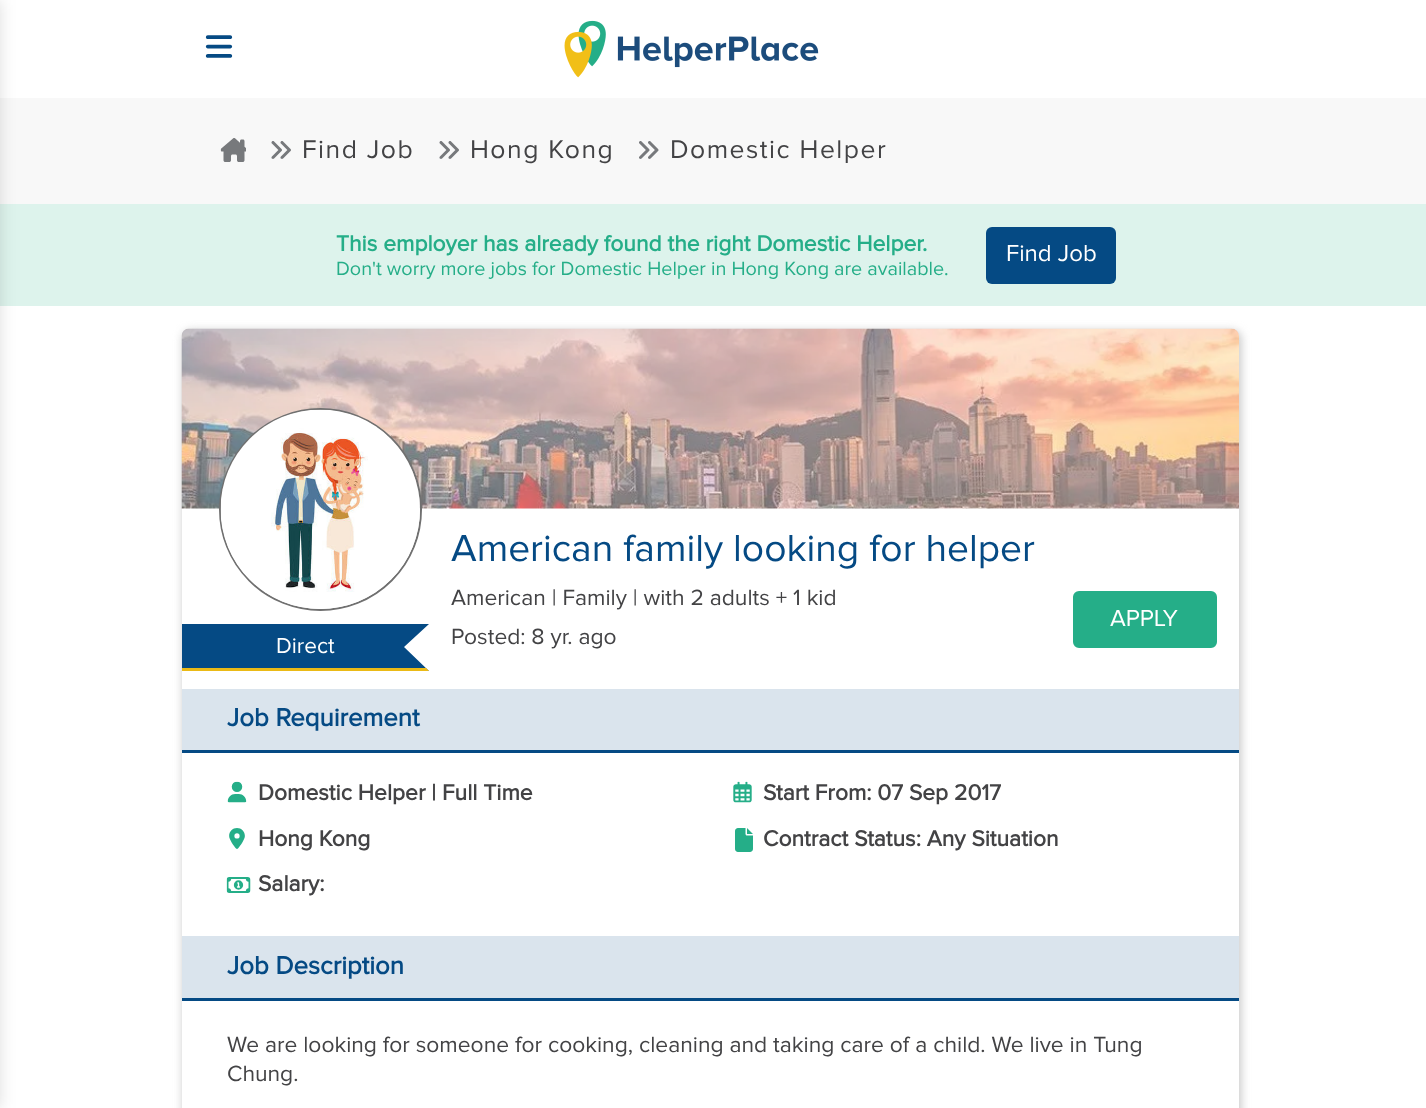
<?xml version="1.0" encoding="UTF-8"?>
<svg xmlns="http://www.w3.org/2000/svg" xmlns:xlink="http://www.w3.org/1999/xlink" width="1426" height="1108">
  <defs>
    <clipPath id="clip1"><path d="M 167 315 h 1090 v 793 h -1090 z m 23 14 h 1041 c 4.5 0 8 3.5 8 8 v 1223 c 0 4.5 -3.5 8 -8 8 h -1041 c -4.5 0 -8 -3.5 -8 -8 v -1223 c 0 -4.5 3.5 -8 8 -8 z" clip-rule="evenodd" /></clipPath>
  </defs>
  <rect width="100%" height="100%" fill="#ffffff" />
  <rect y="98" width="1426" height="106" fill="#f8f8f8" />
  <rect y="204" width="1426" height="102" fill="#ddf3ec" />
  <rect x="-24" width="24" height="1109" fill="#000000" fill-opacity="0.13" filter="blur(8px)" />
  <image x="205" y="35" width="28" height="23" xlink:href="image1.png" />
  <image x="564" y="20" width="255" height="58" xlink:href="image2.png" />
  <image x="220" y="138" width="26" height="24" xlink:href="image3.png" />
  <image x="271" y="141" width="20" height="18" xlink:href="image4.png" />
  <image x="439" y="141" width="20" height="18" xlink:href="image4.png" />
  <image x="639" y="141" width="20" height="18" xlink:href="image5.png" />
  <rect x="986" y="227" width="130" height="57" rx="6" fill="#054a84" />
  <g clip-path="url(#clip1)">
    <rect x="182" y="330" width="1060" height="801" rx="9" fill="#cfcfcf" filter="blur(4.5px)" />
  </g>
  <image x="181" y="328" width="1058" height="181" xlink:href="image6.png" />
  <circle cx="320.5" cy="509.5" r="100.5" fill="none" stroke="#707070" stroke-width="2" />
  <image x="220" y="409" width="200" height="200" xlink:href="image7.png" />
  <rect x="1074" y="592" width="142" height="55" rx="5" fill="#25ae88" stroke="#25ae88" stroke-width="2" />
  <path d="M 182 624 h 247 l -25 23 l 25 24 h -247 z" fill="#054a84" />
  <path d="M 182 668 h 244 l 3 3 h -247 z" fill="#ebba16" />
  <rect x="182" y="689" width="1057" height="61" fill="#dae4ed" />
  <rect x="182" y="750" width="1057" height="3" fill="#054a84" />
  <image x="227" y="781" width="20" height="22" xlink:href="image8.png" />
  <image x="733" y="781" width="19" height="22" xlink:href="image9.png" />
  <image x="229" y="828" width="16" height="21" xlink:href="image10.png" />
  <image x="735" y="828" width="18" height="24" xlink:href="image11.png" />
  <image x="226" y="877" width="25" height="16" xlink:href="image12.png" />
  <rect x="182" y="936" width="1057" height="62" fill="#dae4ed" />
  <rect x="182" y="998" width="1057" height="3" fill="#054a84" />
  <text x="302" y="158" style="font-family: Proxima Nova; font-size: 26.5px; letter-spacing: 1.5px; fill: #434345">Find Job</text>
  <text x="470" y="158" style="font-family: Proxima Nova; font-size: 26.5px; letter-spacing: 1.5px; fill: #434345">Hong Kong</text>
  <text x="670" y="158" style="font-family: Proxima Nova; font-size: 26.5px; letter-spacing: 1.5px; fill: #434345">Domestic Helper</text>
  <text x="336" y="251" style="font-family: Proxima Nova; font-size: 22.8px; font-weight: bold; fill: #25ae88">This employer has already found the right Domestic Helper.</text>
  <text x="336" y="275" style="font-family: Proxima Nova; font-size: 19.8px; fill: #25ae88">Don't worry more jobs for Domestic Helper in Hong Kong are available.</text>
  <text x="1006" y="261" style="font-family: Proxima Nova; font-size: 24px; fill: #ffffff">Find Job</text>
  <text x="451" y="561" style="font-family: Proxima Nova; font-size: 39px; fill: #054a84">American family looking for helper</text>
  <text x="451" y="605" style="font-family: Proxima Nova; font-size: 22.8px; fill: #434345">American | Family | with 2 adults + 1 kid</text>
  <text x="451" y="644" style="font-family: Proxima Nova; font-size: 22.8px; fill: #434345">Posted: 8 yr. ago</text>
  <text x="1110" y="626" style="font-family: Proxima Nova; font-size: 24px; fill: #ffffff">APPLY</text>
  <text x="276" y="653" style="font-family: Proxima Nova; font-size: 22.5px; fill: #ffffff">Direct</text>
  <text x="227" y="726" style="font-family: Proxima Nova; font-size: 25.75px; font-weight: bold; fill: #054a84">Job Requirement</text>
  <text x="258" y="800" style="font-family: Proxima Nova; font-size: 22.8px; font-weight: bold; fill: #434345">Domestic Helper | Full Time</text>
  <text x="763" y="800" style="font-family: Proxima Nova; font-size: 22.8px; font-weight: bold; fill: #434345">Start From: 07 Sep 2017</text>
  <text x="258" y="846" style="font-family: Proxima Nova; font-size: 22.8px; font-weight: bold; fill: #434345">Hong Kong</text>
  <text x="763" y="846" style="font-family: Proxima Nova; font-size: 22.8px; font-weight: bold; fill: #434345">Contract Status: Any Situation</text>
  <text x="258" y="891" style="font-family: Proxima Nova; font-size: 22.8px; font-weight: bold; fill: #434345">Salary:</text>
  <text x="227" y="974" style="font-family: Proxima Nova; font-size: 25.75px; font-weight: bold; fill: #054a84">Job Description</text>
  <text x="227" y="1052" style="font-family: Proxima Nova; font-size: 22.8px; fill: #434345">We are looking for someone for cooking, cleaning and taking care of a child. We live in Tung</text>
  <text x="227" y="1081" style="font-family: Proxima Nova; font-size: 22.8px; fill: #434345">Chung.</text>
</svg>
